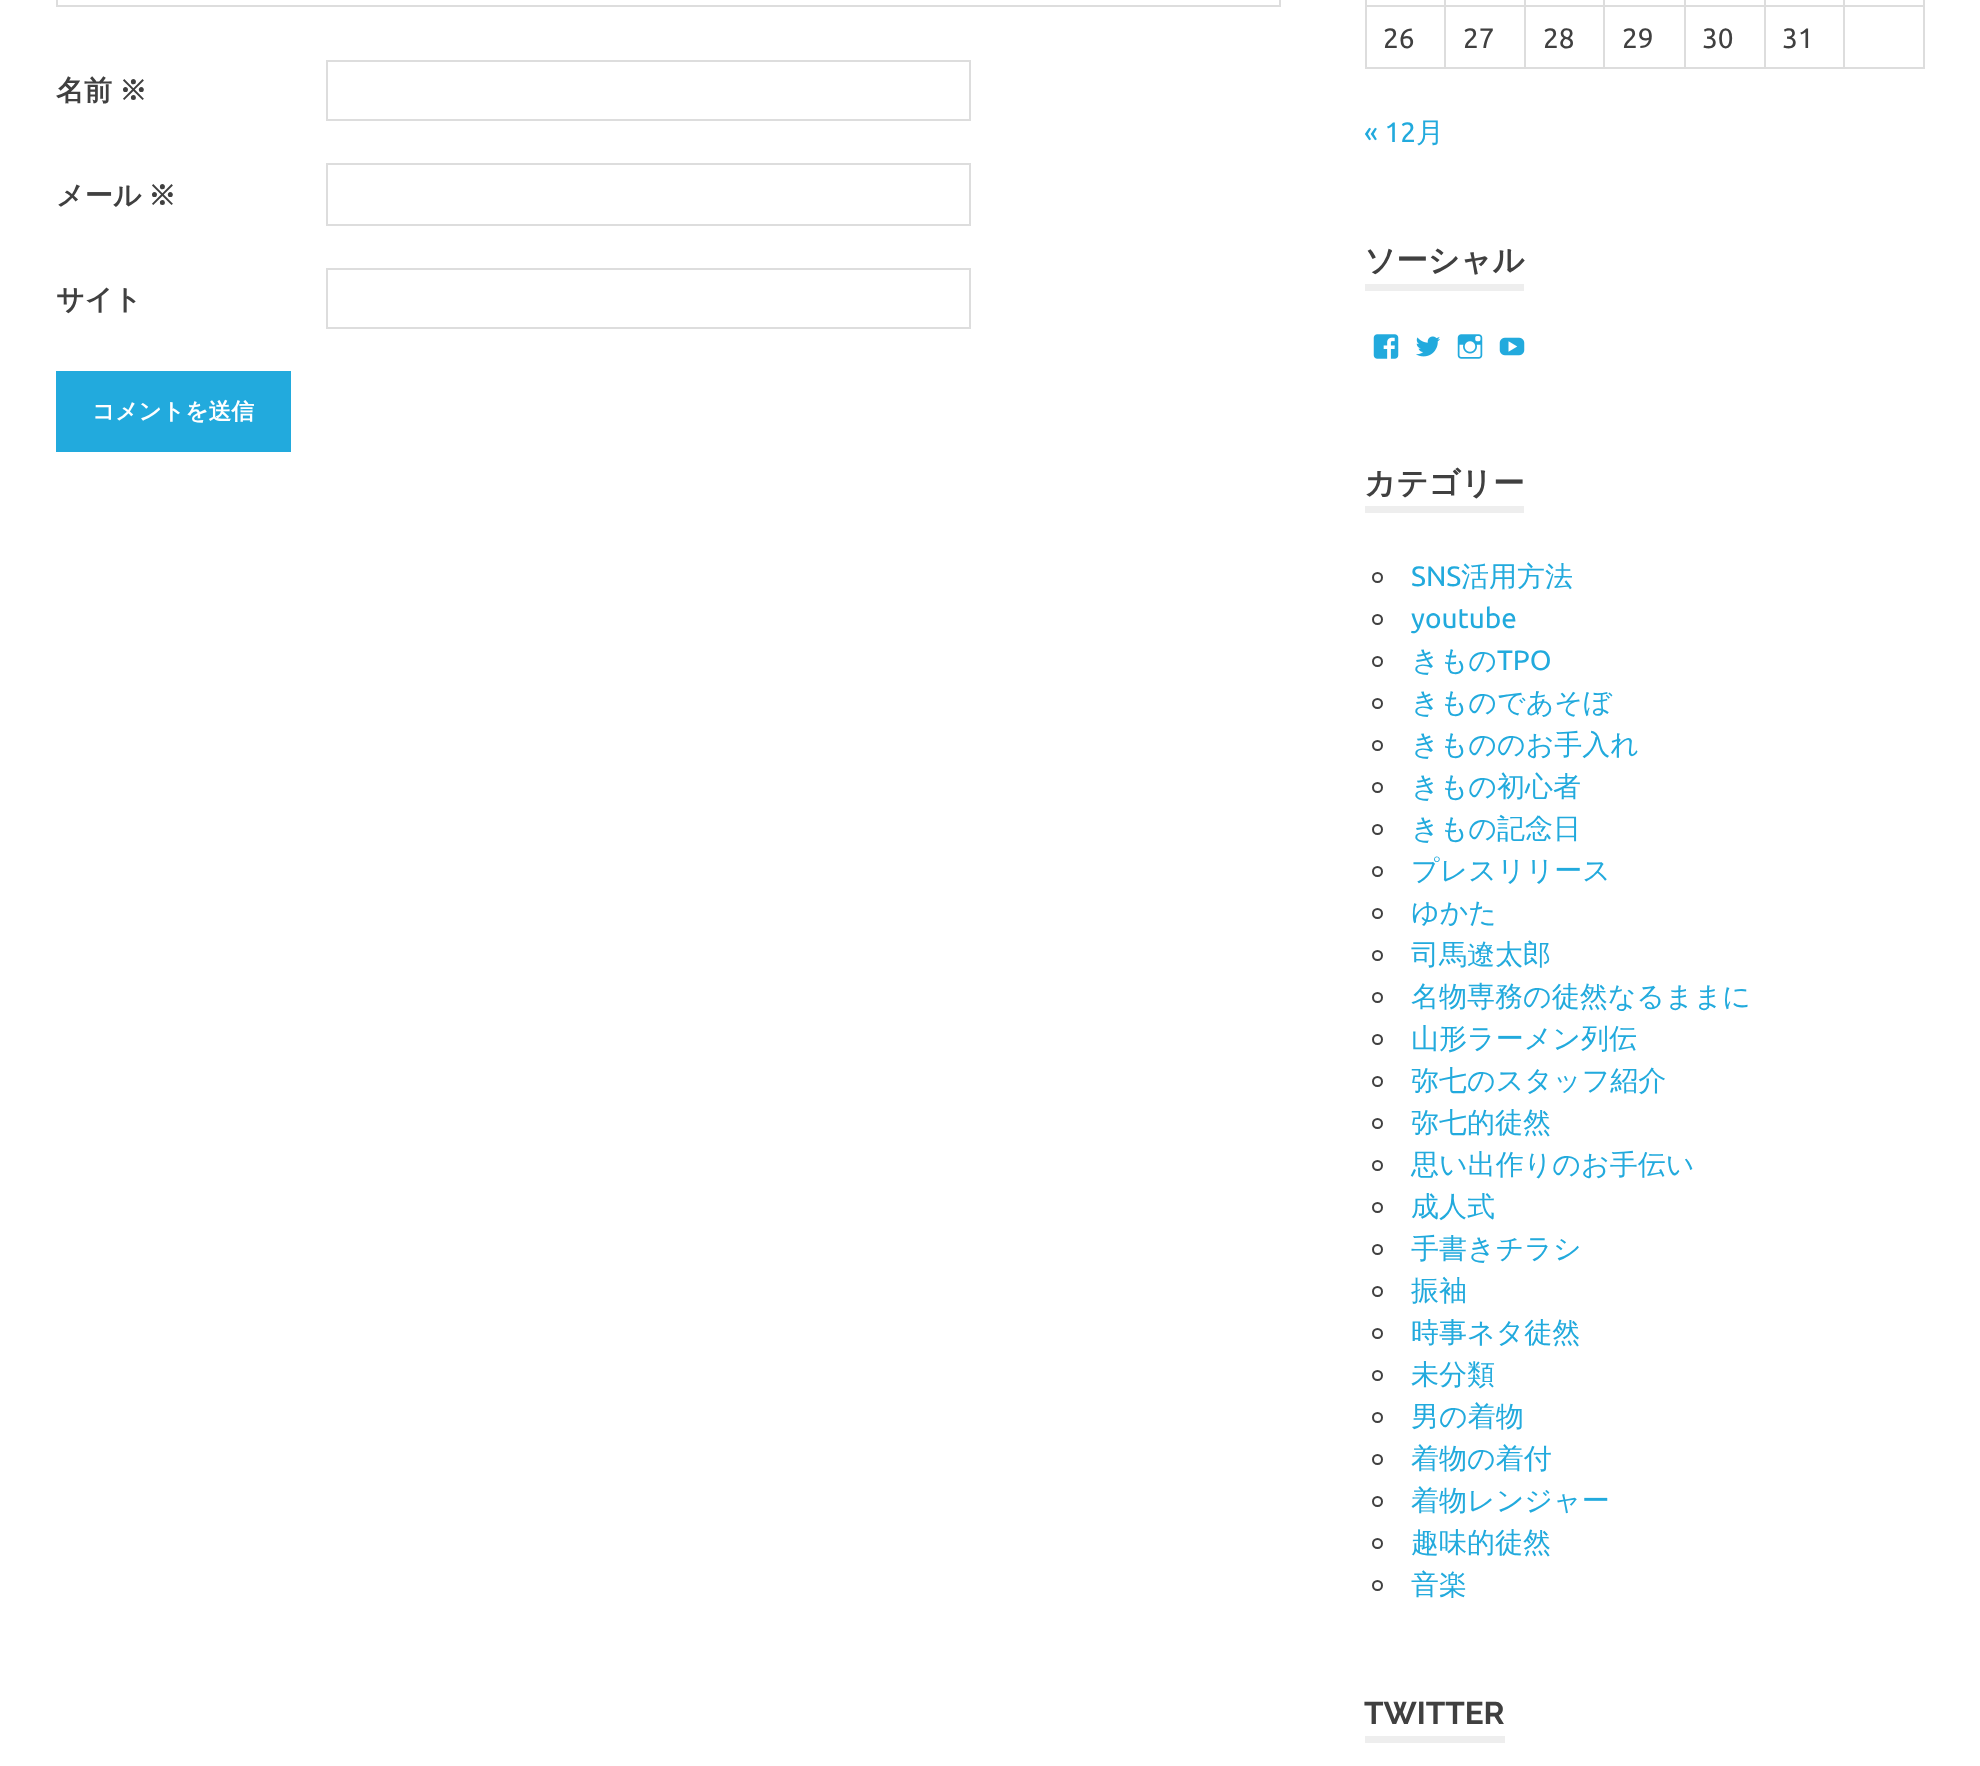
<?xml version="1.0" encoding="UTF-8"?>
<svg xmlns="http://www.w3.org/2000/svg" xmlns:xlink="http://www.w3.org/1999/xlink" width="1980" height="1766">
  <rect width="100%" height="100%" fill="#ffffff" />
  <rect x="57" y="-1" width="1223" height="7" fill="none" stroke="#dddddd" stroke-width="2" />
  <rect x="327" y="61" width="643" height="59" fill="none" stroke="#dddddd" stroke-width="2" />
  <rect x="327" y="164" width="643" height="61" fill="none" stroke="#dddddd" stroke-width="2" />
  <rect x="327" y="269" width="643" height="59" fill="none" stroke="#dddddd" stroke-width="2" />
  <rect x="56" y="371" width="235" height="81" fill="#22aadd" />
  <rect x="1843" y="5" width="82" height="2" fill="#dddddd" />
  <rect x="1923" width="2" height="68" fill="#dddddd" />
  <rect x="1843" y="67" width="82" height="2" fill="#dddddd" />
  <rect x="1843" y="5" width="2" height="63" fill="#dddddd" />
  <rect x="1764" y="5" width="81" height="2" fill="#dddddd" />
  <rect x="1764" y="67" width="81" height="2" fill="#dddddd" />
  <rect x="1764" y="5" width="2" height="63" fill="#dddddd" />
  <rect x="1684" y="5" width="82" height="2" fill="#dddddd" />
  <rect x="1684" y="67" width="82" height="2" fill="#dddddd" />
  <rect x="1684" y="5" width="2" height="63" fill="#dddddd" />
  <rect x="1603" y="5" width="82" height="2" fill="#dddddd" />
  <rect x="1603" y="67" width="82" height="2" fill="#dddddd" />
  <rect x="1603" y="5" width="2" height="63" fill="#dddddd" />
  <rect x="1524" y="5" width="81" height="2" fill="#dddddd" />
  <rect x="1524" y="67" width="81" height="2" fill="#dddddd" />
  <rect x="1524" y="5" width="2" height="63" fill="#dddddd" />
  <rect x="1444" y="5" width="82" height="2" fill="#dddddd" />
  <rect x="1444" y="67" width="82" height="2" fill="#dddddd" />
  <rect x="1444" y="5" width="2" height="63" fill="#dddddd" />
  <rect x="1365" y="5" width="81" height="2" fill="#dddddd" />
  <rect x="1444" width="2" height="7" fill="#dddddd" />
  <rect x="1524" width="2" height="7" fill="#dddddd" />
  <rect x="1603" width="2" height="7" fill="#dddddd" />
  <rect x="1684" width="2" height="7" fill="#dddddd" />
  <rect x="1764" width="2" height="7" fill="#dddddd" />
  <rect x="1843" width="2" height="7" fill="#dddddd" />
  <rect x="1365" y="67" width="81" height="2" fill="#dddddd" />
  <rect x="1365" width="2" height="68" fill="#dddddd" />
  <rect x="1365" y="284" width="159" height="7" fill="#eeeeee" />
  <image x="1373" y="334" width="26" height="25" xlink:href="image1.png" />
  <image x="1416" y="336" width="24" height="21" xlink:href="image2.png" />
  <image x="1457" y="334" width="26" height="25" xlink:href="image3.png" />
  <image x="1499" y="337" width="26" height="19" xlink:href="image4.png" />
  <rect x="1365" y="506" width="159" height="7" fill="#eeeeee" />
  <circle cx="1377.5" cy="577.5" r="4.5" fill="none" stroke="#404040" stroke-width="2" />
  <circle cx="1377.5" cy="619.5" r="4.5" fill="none" stroke="#404040" stroke-width="2" />
  <circle cx="1377.5" cy="661.5" r="4.5" fill="none" stroke="#404040" stroke-width="2" />
  <circle cx="1377.5" cy="703.5" r="4.5" fill="none" stroke="#404040" stroke-width="2" />
  <circle cx="1377.5" cy="745.5" r="4.5" fill="none" stroke="#404040" stroke-width="2" />
  <circle cx="1377.5" cy="787.5" r="4.5" fill="none" stroke="#404040" stroke-width="2" />
  <circle cx="1377.5" cy="829.5" r="4.5" fill="none" stroke="#404040" stroke-width="2" />
  <circle cx="1377.5" cy="871.5" r="4.5" fill="none" stroke="#404040" stroke-width="2" />
  <circle cx="1377.5" cy="913.5" r="4.5" fill="none" stroke="#404040" stroke-width="2" />
  <circle cx="1377.5" cy="955.5" r="4.5" fill="none" stroke="#404040" stroke-width="2" />
  <circle cx="1377.5" cy="997.5" r="4.5" fill="none" stroke="#404040" stroke-width="2" />
  <circle cx="1377.5" cy="1039.5" r="4.5" fill="none" stroke="#404040" stroke-width="2" />
  <circle cx="1377.5" cy="1081.5" r="4.5" fill="none" stroke="#404040" stroke-width="2" />
  <circle cx="1377.5" cy="1123.5" r="4.5" fill="none" stroke="#404040" stroke-width="2" />
  <circle cx="1377.5" cy="1165.5" r="4.5" fill="none" stroke="#404040" stroke-width="2" />
  <circle cx="1377.5" cy="1207.5" r="4.5" fill="none" stroke="#404040" stroke-width="2" />
  <circle cx="1377.5" cy="1249.5" r="4.5" fill="none" stroke="#404040" stroke-width="2" />
  <circle cx="1377.5" cy="1291.5" r="4.5" fill="none" stroke="#404040" stroke-width="2" />
  <circle cx="1377.5" cy="1333.5" r="4.5" fill="none" stroke="#404040" stroke-width="2" />
  <circle cx="1377.5" cy="1375.5" r="4.5" fill="none" stroke="#404040" stroke-width="2" />
  <circle cx="1377.5" cy="1417.5" r="4.5" fill="none" stroke="#404040" stroke-width="2" />
  <circle cx="1377.5" cy="1459.5" r="4.5" fill="none" stroke="#404040" stroke-width="2" />
  <circle cx="1377.5" cy="1501.5" r="4.5" fill="none" stroke="#404040" stroke-width="2" />
  <circle cx="1377.5" cy="1543.5" r="4.5" fill="none" stroke="#404040" stroke-width="2" />
  <circle cx="1377.5" cy="1585.5" r="4.5" fill="none" stroke="#404040" stroke-width="2" />
  <rect x="1365" y="1736" width="140" height="7" fill="#eeeeee" />
  <text x="56" y="100" style="font-family: WenQuanYi Zen Hei; font-size: 28px; font-weight: bold; fill: #404040">名前</text>
  <text x="119" y="100" style="font-family: WenQuanYi Zen Hei; font-size: 28px; font-weight: bold; fill: #404040">※</text>
  <text x="56" y="205" style="font-family: WenQuanYi Zen Hei; font-size: 28px; font-weight: bold; fill: #404040">メール</text>
  <text x="148" y="205" style="font-family: WenQuanYi Zen Hei; font-size: 28px; font-weight: bold; fill: #404040">※</text>
  <text x="56" y="309" style="font-family: WenQuanYi Zen Hei; font-size: 28px; font-weight: bold; fill: #404040">サイト</text>
  <text x="92" y="419" style="font-family: WenQuanYi Zen Hei; font-size: 22.75px; font-weight: bold; fill: #ffffff">コメントを送信</text>
  <text x="1383" y="48" style="font-family: Ubuntu; font-size: 28px; fill: #404040">26</text>
  <text x="1463" y="48" style="font-family: Ubuntu; font-size: 28px; fill: #404040">27</text>
  <text x="1543" y="48" style="font-family: Ubuntu; font-size: 28px; fill: #404040">28</text>
  <text x="1622" y="48" style="font-family: Ubuntu; font-size: 28px; fill: #404040">29</text>
  <text x="1702" y="48" style="font-family: Ubuntu; font-size: 28px; fill: #404040">30</text>
  <text x="1782" y="48" style="font-family: Ubuntu; font-size: 28px; fill: #404040">31</text>
  <text x="1364" y="142" style="font-family: Ubuntu; font-size: 28px; fill: #22aadd">« 12</text>
  <text x="1416" y="142" style="font-family: WenQuanYi Zen Hei; font-size: 28px; font-weight: 500; fill: #22aadd">月</text>
  <text x="1364" y="271" style="font-family: WenQuanYi Zen Hei; font-size: 31.5px; font-weight: bold; fill: #404040">ソーシャル</text>
  <text x="1364" y="494" style="font-family: WenQuanYi Zen Hei; font-size: 31.5px; font-weight: bold; fill: #404040">カテゴリー</text>
  <text x="1411" y="586" style="font-family: Ubuntu; font-size: 28px; fill: #22aadd">SNS</text>
  <text x="1461" y="586" style="font-family: WenQuanYi Zen Hei; font-size: 28px; font-weight: 500; fill: #22aadd">活用方法</text>
  <text x="1411" y="628" style="font-family: Ubuntu; font-size: 28px; fill: #22aadd">youtube</text>
  <text x="1411" y="670" style="font-family: WenQuanYi Zen Hei; font-size: 28px; font-weight: 500; fill: #22aadd">きもの</text>
  <text x="1497" y="670" style="font-family: Ubuntu; font-size: 28px; fill: #22aadd">TPO</text>
  <text x="1411" y="712" style="font-family: WenQuanYi Zen Hei; font-size: 28px; font-weight: 500; fill: #22aadd">きものであそぼ</text>
  <text x="1411" y="754" style="font-family: WenQuanYi Zen Hei; font-size: 28px; font-weight: 500; fill: #22aadd">きもののお手入れ</text>
  <text x="1411" y="796" style="font-family: WenQuanYi Zen Hei; font-size: 28px; font-weight: 500; fill: #22aadd">きもの初心者</text>
  <text x="1411" y="838" style="font-family: WenQuanYi Zen Hei; font-size: 28px; font-weight: 500; fill: #22aadd">きもの記念日</text>
  <text x="1411" y="880" style="font-family: WenQuanYi Zen Hei; font-size: 28px; font-weight: 500; fill: #22aadd">プレスリリース</text>
  <text x="1411" y="922" style="font-family: WenQuanYi Zen Hei; font-size: 28px; font-weight: 500; fill: #22aadd">ゆかた</text>
  <text x="1411" y="964" style="font-family: WenQuanYi Zen Hei; font-size: 28px; font-weight: 500; fill: #22aadd">司馬遼太郎</text>
  <text x="1411" y="1006" style="font-family: WenQuanYi Zen Hei; font-size: 28px; font-weight: 500; fill: #22aadd">名物専務の徒然なるままに</text>
  <text x="1411" y="1048" style="font-family: WenQuanYi Zen Hei; font-size: 28px; font-weight: 500; fill: #22aadd">山形ラーメン列伝</text>
  <text x="1411" y="1090" style="font-family: WenQuanYi Zen Hei; font-size: 28px; font-weight: 500; fill: #22aadd">弥七のスタッフ紹介</text>
  <text x="1411" y="1132" style="font-family: WenQuanYi Zen Hei; font-size: 28px; font-weight: 500; fill: #22aadd">弥七的徒然</text>
  <text x="1411" y="1174" style="font-family: WenQuanYi Zen Hei; font-size: 28px; font-weight: 500; fill: #22aadd">思い出作りのお手伝い</text>
  <text x="1411" y="1216" style="font-family: WenQuanYi Zen Hei; font-size: 28px; font-weight: 500; fill: #22aadd">成人式</text>
  <text x="1411" y="1258" style="font-family: WenQuanYi Zen Hei; font-size: 28px; font-weight: 500; fill: #22aadd">手書きチラシ</text>
  <text x="1411" y="1300" style="font-family: WenQuanYi Zen Hei; font-size: 28px; font-weight: 500; fill: #22aadd">振袖</text>
  <text x="1411" y="1342" style="font-family: WenQuanYi Zen Hei; font-size: 28px; font-weight: 500; fill: #22aadd">時事ネタ徒然</text>
  <text x="1411" y="1384" style="font-family: WenQuanYi Zen Hei; font-size: 28px; font-weight: 500; fill: #22aadd">未分類</text>
  <text x="1411" y="1426" style="font-family: WenQuanYi Zen Hei; font-size: 28px; font-weight: 500; fill: #22aadd">男の着物</text>
  <text x="1411" y="1468" style="font-family: WenQuanYi Zen Hei; font-size: 28px; font-weight: 500; fill: #22aadd">着物の着付</text>
  <text x="1411" y="1510" style="font-family: WenQuanYi Zen Hei; font-size: 28px; font-weight: 500; fill: #22aadd">着物レンジャー</text>
  <text x="1411" y="1552" style="font-family: WenQuanYi Zen Hei; font-size: 28px; font-weight: 500; fill: #22aadd">趣味的徒然</text>
  <text x="1411" y="1594" style="font-family: WenQuanYi Zen Hei; font-size: 28px; font-weight: 500; fill: #22aadd">音楽</text>
  <text x="1364" y="1724" style="font-family: Raleway; font-size: 31.5px; font-weight: 100; fill: #404040">TWITTER</text>
</svg>
